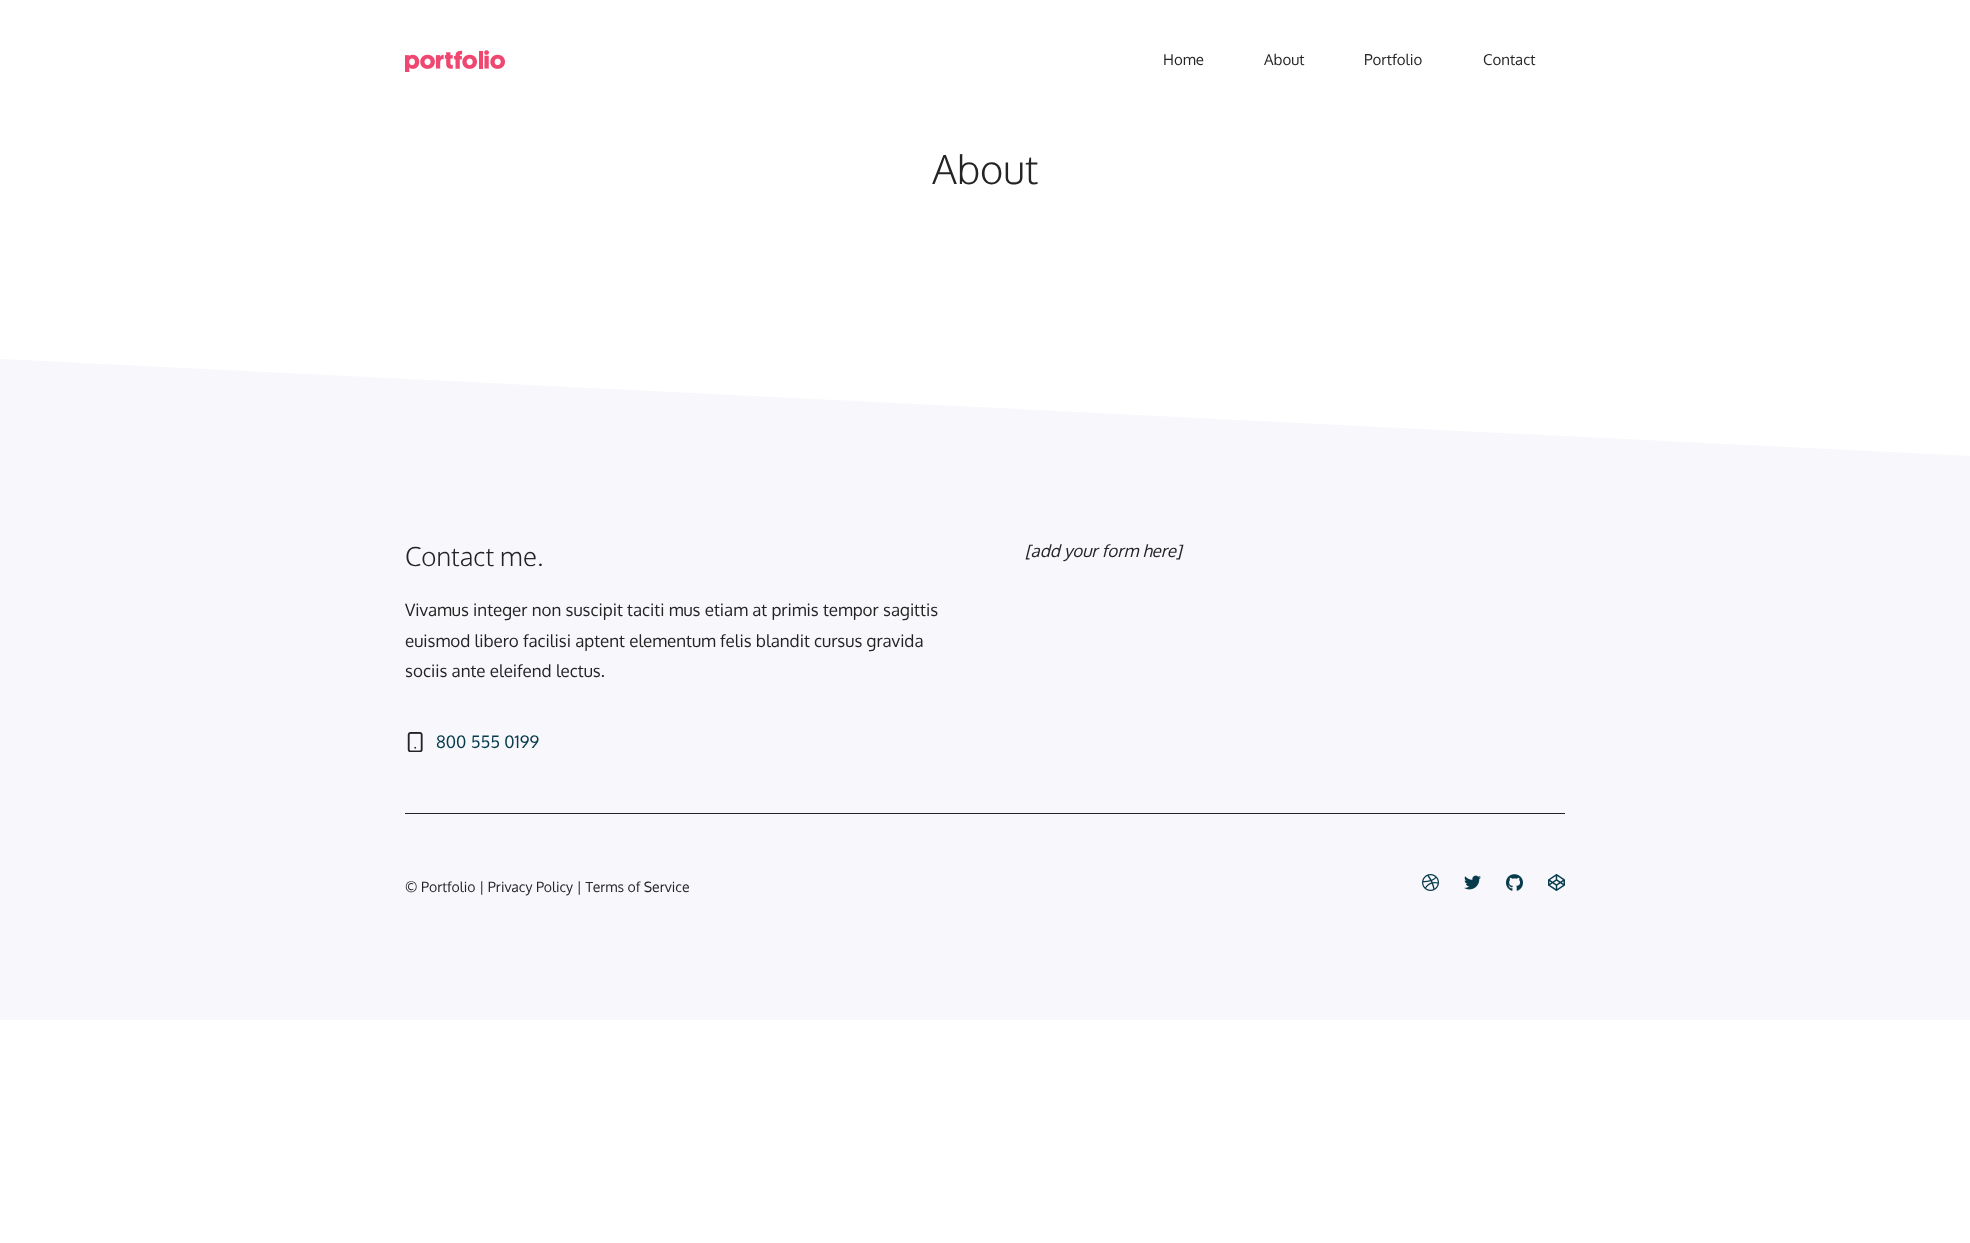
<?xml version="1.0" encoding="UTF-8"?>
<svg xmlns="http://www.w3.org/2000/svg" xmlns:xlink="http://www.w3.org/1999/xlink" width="1970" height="1243">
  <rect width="100%" height="100%" fill="#ffffff" />
  <image x="405" y="50" width="100" height="22" xlink:href="image1.png" />
  <rect y="359" width="1970" height="661" fill="#f7f7fc" />
  <path d="M 0 356 h 1970 v 100 l -1970 -97 z" fill="#ffffff" />
  <image x="407" y="732" width="16" height="20" xlink:href="image2.png" />
  <rect x="405" y="813" width="1160" height="1" fill="#242424" />
  <image x="1422" y="874" width="17" height="17" xlink:href="image3.png" />
  <image x="1464" y="875" width="17" height="15" xlink:href="image4.png" />
  <image x="1506" y="874" width="17" height="17" xlink:href="image5.png" />
  <image x="1548" y="874" width="17" height="17" xlink:href="image6.png" />
  <text x="1163" y="65" style="font-family: Oxygen; font-size: 15px; fill: #242424">Home</text>
  <text x="1264" y="65" style="font-family: Oxygen; font-size: 15px; fill: #242424">About</text>
  <text x="1364" y="65" style="font-family: Oxygen; font-size: 15px; fill: #242424">Portfolio</text>
  <text x="1483" y="65" style="font-family: Oxygen; font-size: 15px; fill: #242424">Contact</text>
  <text x="932" y="184" style="font-family: Oxygen; font-size: 40px; font-weight: 300; fill: #242424">About</text>
  <text x="405" y="566" style="font-family: Oxygen; font-size: 26px; font-weight: 300; fill: #242424">Contact me.</text>
  <text x="405" y="616" style="font-family: Oxygen; font-size: 17px; fill: #242424">Vivamus integer non suscipit taciti mus etiam at primis tempor sagittis</text>
  <text x="405" y="647" style="font-family: Oxygen; font-size: 17px; fill: #242424">euismod libero facilisi aptent elementum felis blandit cursus gravida</text>
  <text x="405" y="677" style="font-family: Oxygen; font-size: 17px; fill: #242424">sociis ante eleifend lectus.</text>
  <text x="436" y="748" style="font-family: Oxygen; font-size: 17px; fill: #073b4c">800 555 0199</text>
  <text x="1025" y="557" style="font-family: Oxygen; font-size: 17px; font-style: italic; fill: #242424">[add your form here]</text>
  <text x="405" y="892" style="font-family: Oxygen; font-size: 14px; fill: #242424">© Portfolio | Privacy Policy | Terms of Service</text>
</svg>
